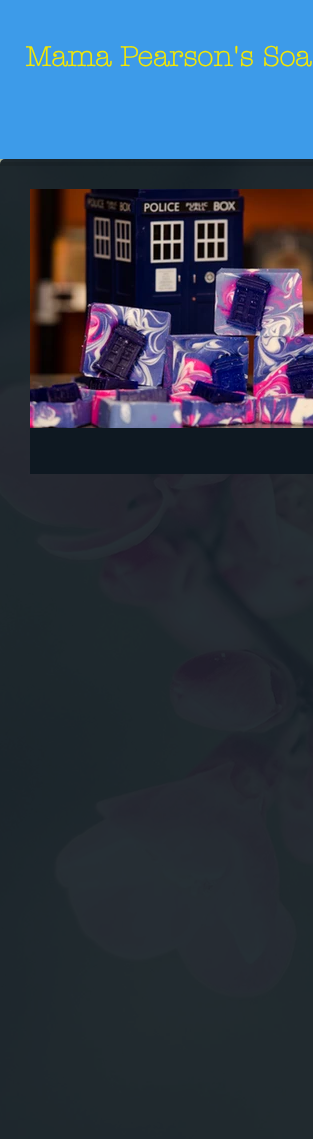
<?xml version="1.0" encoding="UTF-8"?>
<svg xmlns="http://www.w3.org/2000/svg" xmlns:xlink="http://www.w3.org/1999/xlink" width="313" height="1139">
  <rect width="100%" height="100%" fill="#ffffff" />
  <rect width="313" height="159" fill="#3d9be9" />
  <image x="0" y="159" width="313" height="980" xlink:href="image2.png" />
  <rect y="159" width="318" height="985" rx="5" fill="#0e1821" fill-opacity="0.9" />
  <rect y="162" width="313" height="4" fill="#000000" fill-opacity="0.09" />
  <rect x="30" y="428" width="283" height="46" fill="#0e1821" />
  <image x="30" y="189" width="283" height="239" xlink:href="image1.png" />
  <text x="25" y="66" style="font-family: 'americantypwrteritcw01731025'; font-size: 28px; font-weight: bold; fill: #f2e605">Mama Pearson's Soa</text>
</svg>
